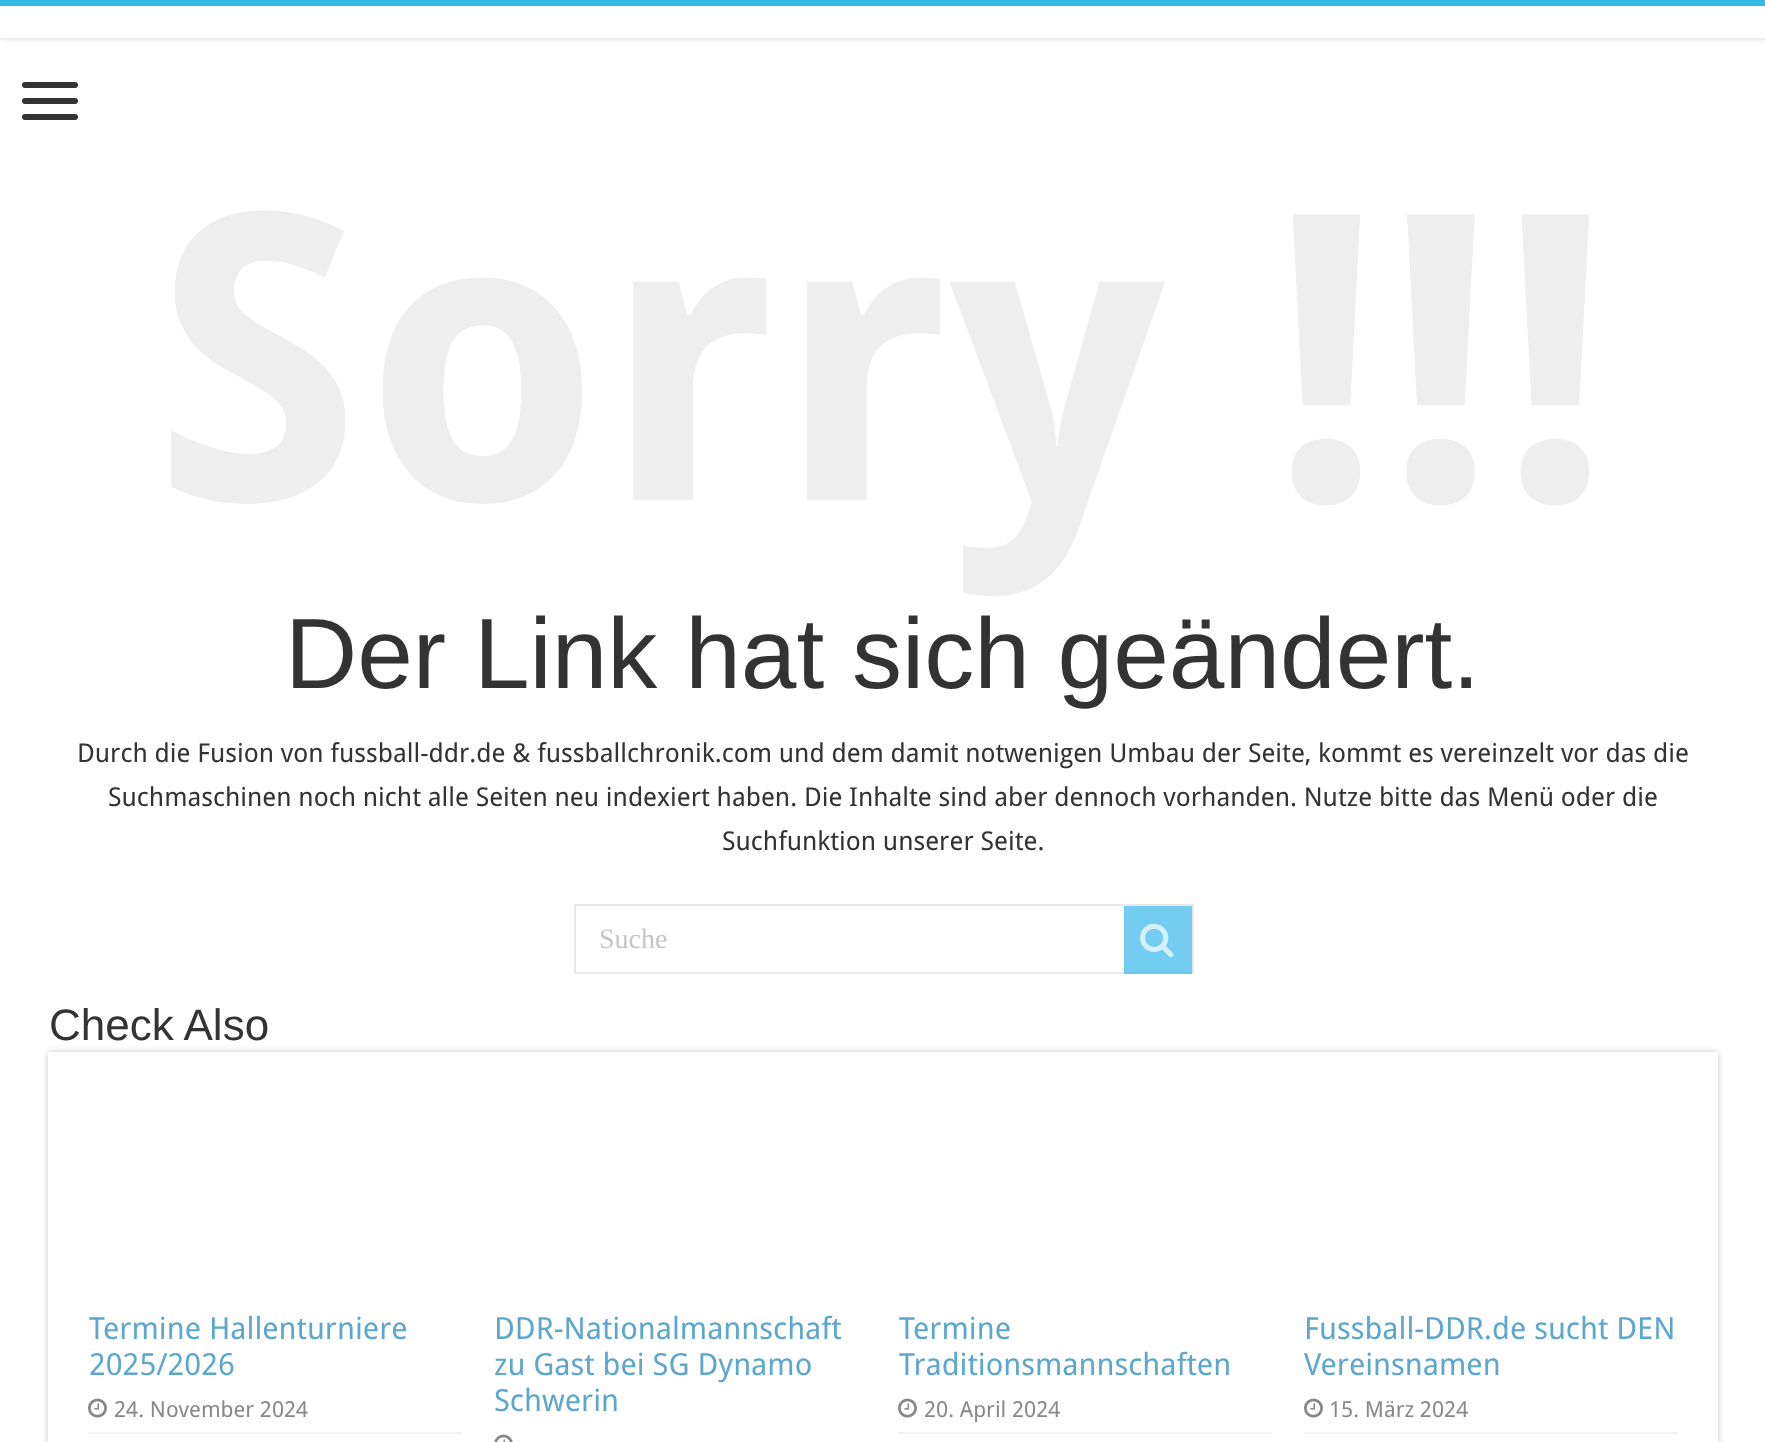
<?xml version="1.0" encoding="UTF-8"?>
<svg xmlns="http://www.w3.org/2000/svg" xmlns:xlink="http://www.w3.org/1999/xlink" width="1765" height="1442">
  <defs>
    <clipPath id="clip1"><rect x="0" y="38" width="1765" height="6" /></clipPath>
    <clipPath id="clip2"><path d="M 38 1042 h 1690 v 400 h -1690 z m 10 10 h 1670 v 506 h -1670 z" clip-rule="evenodd" /></clipPath>
  </defs>
  <rect width="100%" height="100%" fill="#ffffff" />
  <g clip-path="url(#clip1)">
    <rect width="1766" height="38" fill="#cacaca" filter="blur(3px)" />
  </g>
  <rect width="1765" height="6" fill="#37b8eb" />
  <rect x="22" y="82" width="56" height="6" rx="3" fill="#333333" />
  <rect x="22" y="98" width="56" height="6" rx="3" fill="#333333" />
  <rect x="22" y="114" width="56" height="6" rx="3" fill="#333333" />
  <rect x="575" y="905" width="618" height="68" fill="none" stroke="#e8e8e8" stroke-width="2" />
  <rect x="1124" y="906" width="68" height="68" fill="#37b8eb" fill-opacity="0.7" />
  <image x="1140" y="923" width="34" height="35" xlink:href="image1.png" />
  <g clip-path="url(#clip2)">
    <rect x="48" y="1052" width="1670" height="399" fill="#cacaca" filter="blur(3px)" />
  </g>
  <rect x="88" y="1432" width="374" height="2" fill="#f2f2f2" />
  <image x="88" y="1398" width="19" height="20" xlink:href="image2.png" />
  <image x="494" y="1434" width="19" height="8" xlink:href="image3.png" />
  <rect x="898" y="1432" width="374" height="2" fill="#f2f2f2" />
  <image x="898" y="1398" width="19" height="20" xlink:href="image2.png" />
  <rect x="1304" y="1432" width="374" height="2" fill="#f2f2f2" />
  <image x="1304" y="1398" width="19" height="20" xlink:href="image2.png" />
  <text x="153" y="500" style="font-family: Droid Sans; font-size: 400px; font-weight: bold; fill: #eeeeee">Sorry !!!</text>
  <text x="285" y="688" style="font-family: Liberation Sans; font-size: 100px; fill: #333333">Der Link hat sich geändert.</text>
  <text x="77" y="762" style="font-family: Droid Sans; font-size: 26px; fill: #333333">Durch die Fusion von fussball-ddr.de &amp; fussballchronik.com und dem damit notwenigen Umbau der Seite, kommt es vereinzelt vor das die</text>
  <text x="108" y="806" style="font-family: Droid Sans; font-size: 26px; fill: #333333">Suchmaschinen noch nicht alle Seiten neu indexiert haben. Die Inhalte sind aber dennoch vorhanden. Nutze bitte das Menü oder die</text>
  <text x="722" y="850" style="font-family: Droid Sans; font-size: 26px; fill: #333333">Suchfunktion unserer Seite.</text>
  <text x="599" y="948" style="font-family: Liberation Serif; font-size: 28px; fill: #c5c5c5">Suche</text>
  <text x="49" y="1040" style="font-family: Liberation Sans; font-size: 44px; fill: #333333">Check Also</text>
  <text x="89" y="1339" style="font-family: Droid Sans; font-size: 30.5px; fill: #5da7ce">Termine Hallenturniere</text>
  <text x="89" y="1375" style="font-family: Droid Sans; font-size: 30.5px; fill: #5da7ce">2025/2026</text>
  <text x="114" y="1417" style="font-family: Droid Sans; font-size: 22px; fill: #888888">24. November 2024</text>
  <text x="494" y="1339" style="font-family: Droid Sans; font-size: 30.5px; fill: #5da7ce">DDR-Nationalmannschaft</text>
  <text x="494" y="1375" style="font-family: Droid Sans; font-size: 30.5px; fill: #5da7ce">zu Gast bei SG Dynamo</text>
  <text x="494" y="1411" style="font-family: Droid Sans; font-size: 30.5px; fill: #5da7ce">Schwerin</text>
  <text x="899" y="1339" style="font-family: Droid Sans; font-size: 30.5px; fill: #5da7ce">Termine</text>
  <text x="899" y="1375" style="font-family: Droid Sans; font-size: 30.5px; fill: #5da7ce">Traditionsmannschaften</text>
  <text x="924" y="1417" style="font-family: Droid Sans; font-size: 22px; fill: #888888">20. April 2024</text>
  <text x="1304" y="1339" style="font-family: Droid Sans; font-size: 30.5px; fill: #5da7ce">Fussball-DDR.de sucht DEN</text>
  <text x="1304" y="1375" style="font-family: Droid Sans; font-size: 30.5px; fill: #5da7ce">Vereinsnamen</text>
  <text x="1329" y="1417" style="font-family: Droid Sans; font-size: 22px; fill: #888888">15. März 2024</text>
</svg>
